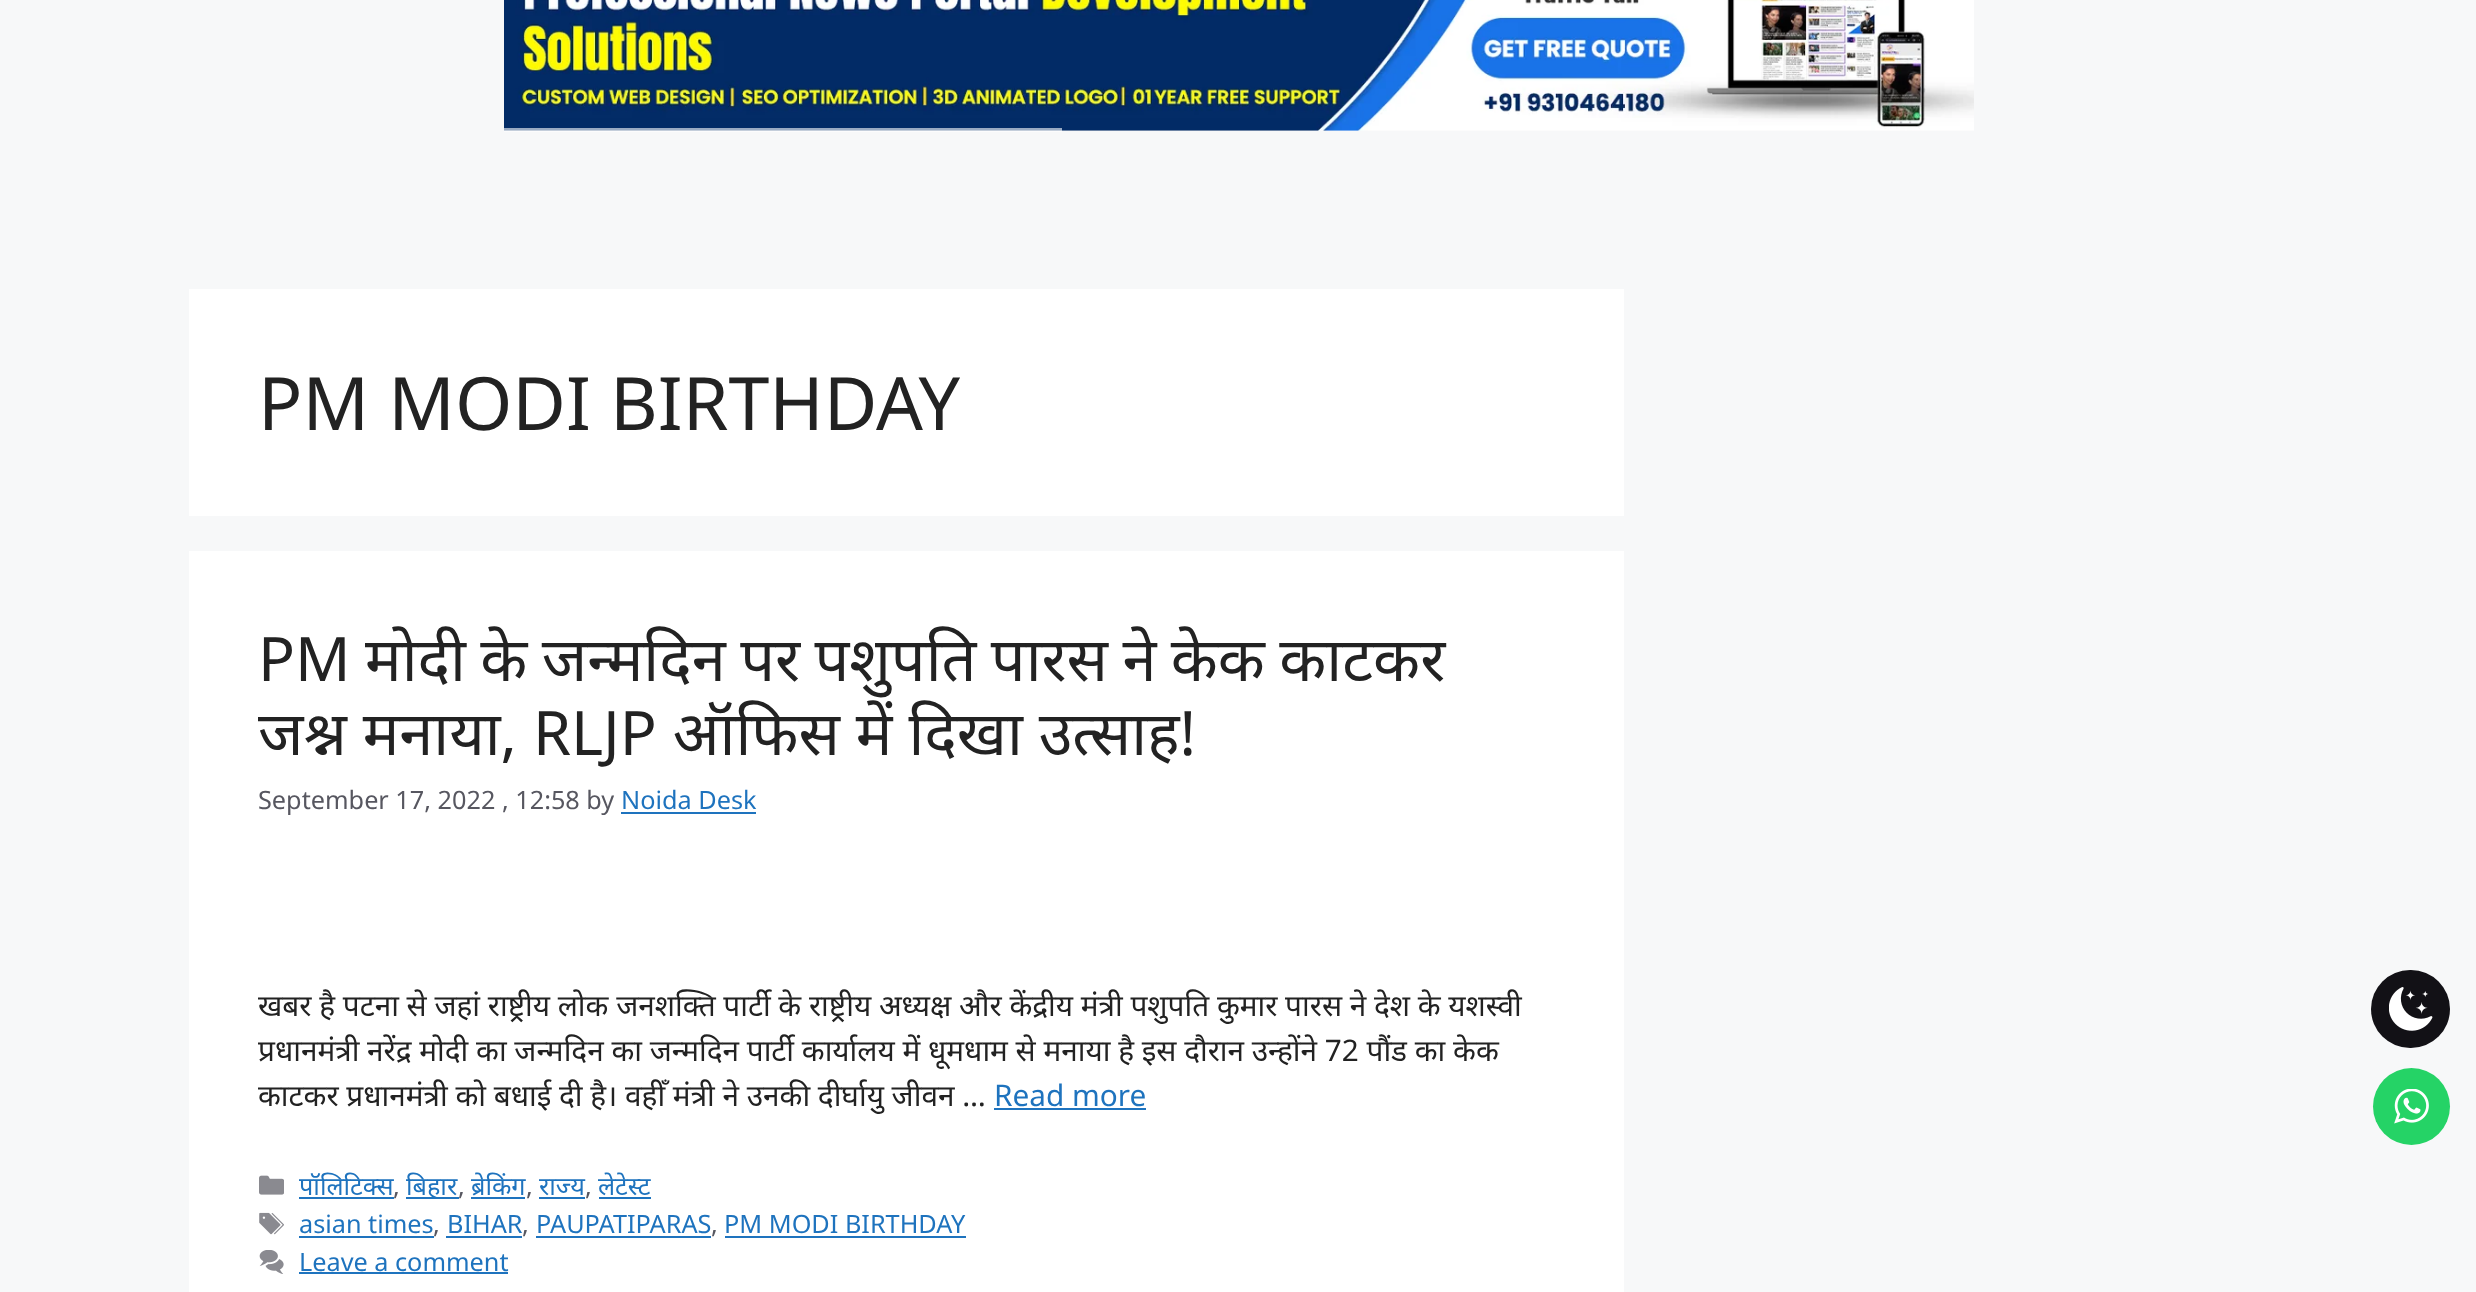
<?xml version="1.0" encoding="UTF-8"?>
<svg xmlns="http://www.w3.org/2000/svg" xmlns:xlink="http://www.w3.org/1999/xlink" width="2476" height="1292">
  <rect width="100%" height="100%" fill="#f7f8f9" />
  <image x="504" y="0" width="1470" height="131" xlink:href="image1.png" />
  <rect x="504" y="128" width="558" height="4" fill="#ffffff" fill-opacity="0.6" />
  <rect x="189" y="289" width="1435" height="227" fill="#ffffff" />
  <rect x="189" y="551" width="1435" height="741" fill="#ffffff" />
  <rect x="621" y="812" width="135" height="2" fill="#1e73be" />
  <rect x="994" y="1108" width="152" height="2" fill="#1e73be" />
  <image x="259" y="1175" width="25" height="20" xlink:href="image2.png" />
  <rect x="299" y="1197" width="95" height="2" fill="#1e73be" />
  <rect x="406" y="1197" width="53" height="2" fill="#1e73be" />
  <rect x="471" y="1197" width="54" height="2" fill="#1e73be" />
  <rect x="539" y="1197" width="46" height="2" fill="#1e73be" />
  <rect x="599" y="1197" width="52" height="2" fill="#1e73be" />
  <image x="259" y="1212" width="25" height="23" xlink:href="image3.png" />
  <rect x="299" y="1236" width="135" height="2" fill="#1e73be" />
  <rect x="446" y="1236" width="76" height="2" fill="#1e73be" />
  <rect x="536" y="1236" width="175" height="2" fill="#1e73be" />
  <rect x="725" y="1236" width="241" height="2" fill="#1e73be" />
  <image x="259" y="1250" width="25" height="24" xlink:href="image4.png" />
  <rect x="299" y="1272" width="209" height="2" fill="#1e73be" />
  <rect x="2371" y="970" width="79" height="78" rx="39" fill="#121116" />
  <image x="2389" y="987" width="44" height="44" xlink:href="image5.png" />
  <circle cx="2411.5" cy="1106.5" r="38.5" fill="#25d366" />
  <image x="2394" y="1089" width="35" height="35" xlink:href="image6.png" />
  <text x="258" y="430" style="font-family: Noto Sans; font-size: 73.5px; fill: #222222">PM MODI BIRTHDAY</text>
  <text x="258" y="681" word-spacing="-1.5" style="font-family: Noto Sans; font-size: 61.25px; fill: #222222">PM मोदी के जन्मदिन पर पशुपति पारस ने केक काटकर</text>
  <text x="258" y="755" style="font-family: Noto Sans; font-size: 61.25px; fill: #222222">जश्न मनाया, RLJP ऑफिस में दिखा उत्साह!</text>
  <text x="258" y="809" style="font-family: Noto Sans; font-size: 25.25px; fill: #575760">September 17, 2022 , 12:58 by</text>
  <text x="621" y="809" style="font-family: Noto Sans; font-size: 25.25px; fill: #1e73be">Noida Desk</text>
  <text x="258" y="1016" style="font-family: Noto Sans; font-size: 29.75px; fill: #222222">खबर है पटना से जहां राष्ट्रीय लोक जनशक्ति पार्टी के राष्ट्रीय अध्यक्ष और केंद्रीय मंत्री पशुपति कुमार पारस ने देश के यशस्वी</text>
  <text x="258" y="1061" style="font-family: Noto Sans; font-size: 29.75px; fill: #222222">प्रधानमंत्री नरेंद्र मोदी का जन्मदिन का जन्मदिन पार्टी कार्यालय में धूमधाम से मनाया है इस दौरान उन्होंने 72 पौंड का केक</text>
  <text x="258" y="1106" style="font-family: Noto Sans; font-size: 29.75px; fill: #222222">काटकर प्रधानमंत्री को बधाई दी है। वहीँ मंत्री ने उनकी दीर्घायु जीवन …</text>
  <text x="994" y="1106" style="font-family: Noto Sans; font-size: 29.75px; fill: #1e73be">Read more</text>
  <text x="299" y="1195" style="font-family: Noto Sans; font-size: 25.25px; fill: #1e73be">पॉलिटिक्स</text>
  <text x="393" y="1195" style="font-family: Noto Sans; font-size: 25.25px; fill: #575760">,</text>
  <text x="406" y="1195" style="font-family: Noto Sans; font-size: 25.25px; fill: #1e73be">बिहार</text>
  <text x="539" y="1195" style="font-family: Noto Sans; font-size: 25.25px; fill: #1e73be">राज्य</text>
  <text x="458" y="1195" style="font-family: Noto Sans; font-size: 25.25px; fill: #575760">,</text>
  <text x="471" y="1195" style="font-family: Noto Sans; font-size: 25.25px; fill: #1e73be">ब्रेकिंग</text>
  <text x="526" y="1195" style="font-family: Noto Sans; font-size: 25.25px; fill: #575760">,</text>
  <text x="585" y="1195" style="font-family: Noto Sans; font-size: 25.25px; fill: #575760">,</text>
  <text x="598" y="1195" style="font-family: Noto Sans; font-size: 25.25px; fill: #1e73be">लेटेस्ट</text>
  <text x="299" y="1233" style="font-family: Noto Sans; font-size: 25.25px; fill: #1e73be">asian times</text>
  <text x="433" y="1233" style="font-family: Noto Sans; font-size: 25.25px; fill: #575760">,</text>
  <text x="447" y="1233" style="font-family: Noto Sans; font-size: 25.25px; fill: #1e73be">BIHAR</text>
  <text x="522" y="1233" style="font-family: Noto Sans; font-size: 25.25px; fill: #575760">,</text>
  <text x="536" y="1233" style="font-family: Noto Sans; font-size: 25.25px; fill: #1e73be">PAUPATIPARAS</text>
  <text x="711" y="1233" style="font-family: Noto Sans; font-size: 25.25px; fill: #575760">,</text>
  <text x="724" y="1233" style="font-family: Noto Sans; font-size: 25.25px; fill: #1e73be">PM MODI BIRTHDAY</text>
  <text x="299" y="1271" style="font-family: Noto Sans; font-size: 25.25px; fill: #1e73be">Leave a comment</text>
</svg>
